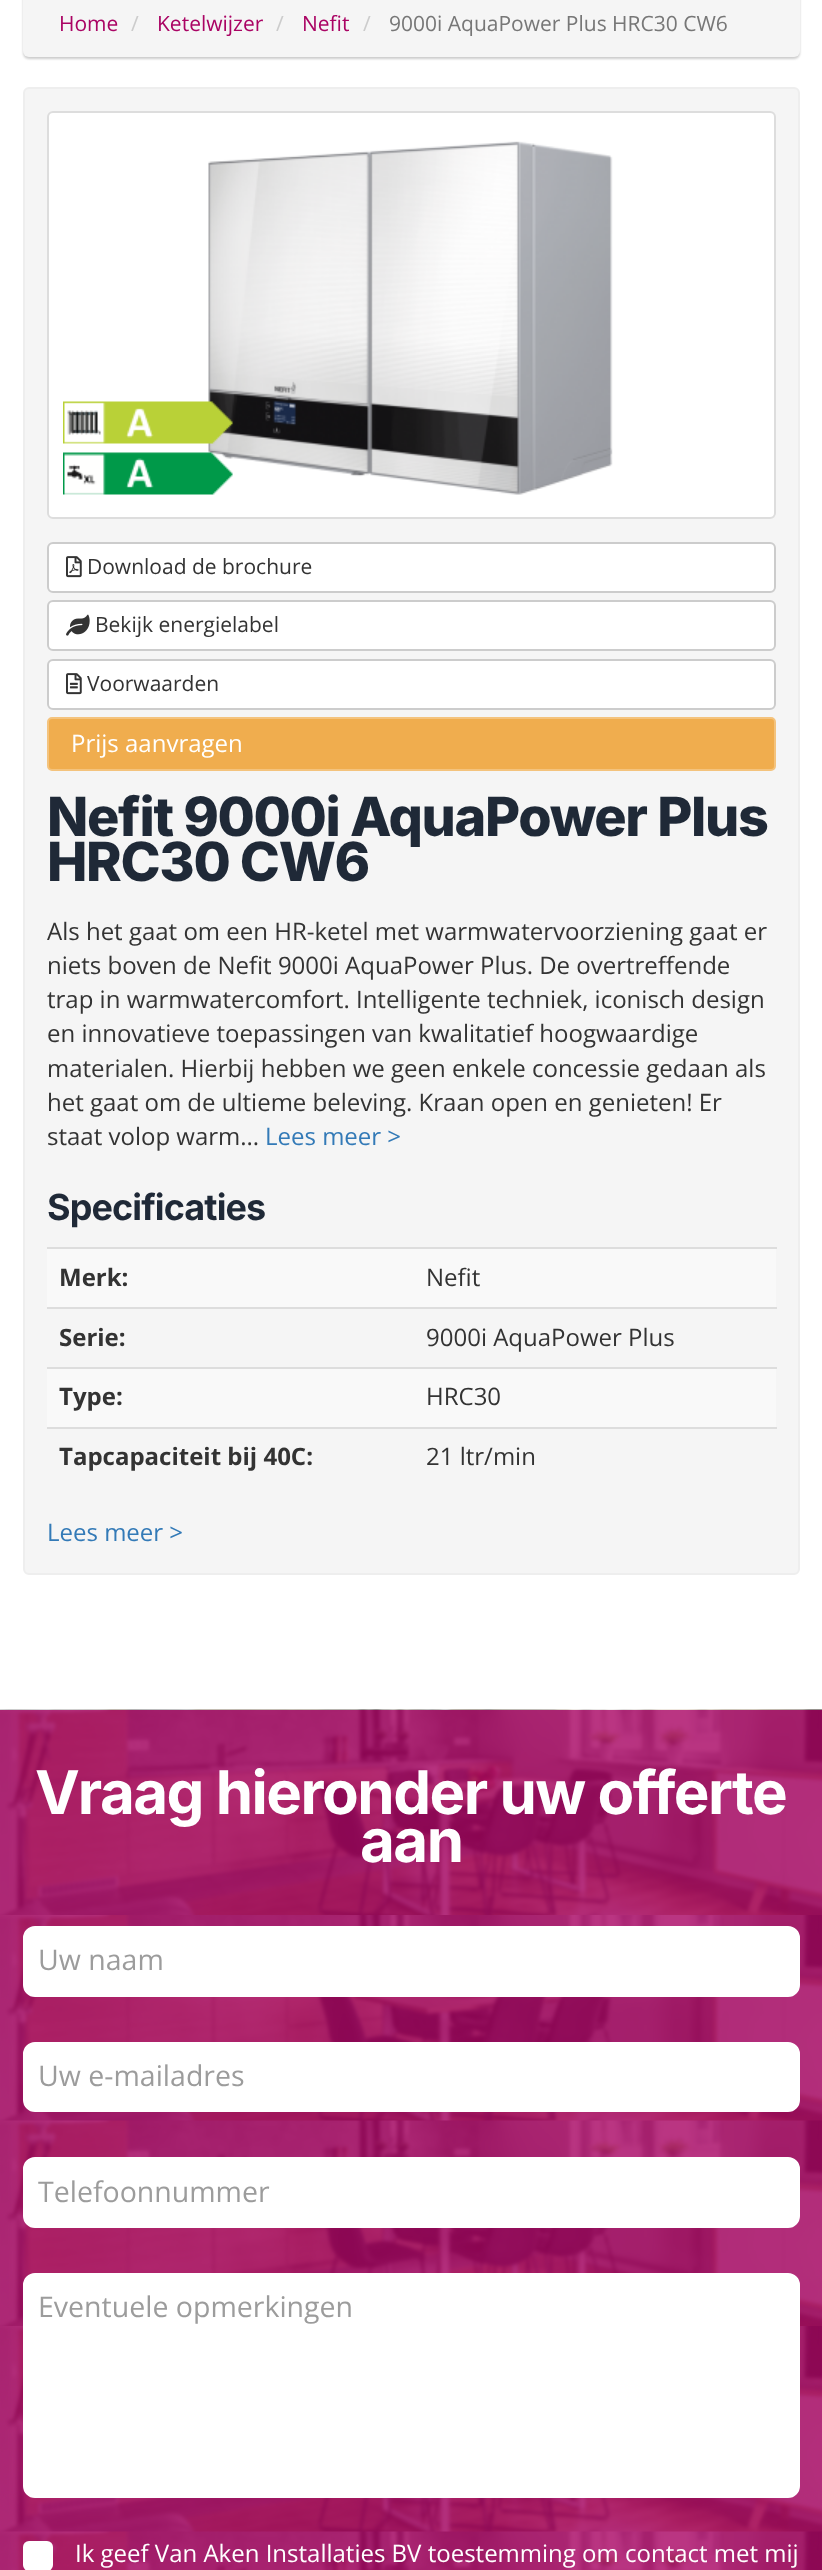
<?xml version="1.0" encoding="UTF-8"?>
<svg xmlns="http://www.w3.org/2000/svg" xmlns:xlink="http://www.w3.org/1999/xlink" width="822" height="2570">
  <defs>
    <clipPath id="clip1"><rect x="38" y="2172" width="747" height="39" /></clipPath>
  </defs>
  <rect width="100%" height="100%" fill="#ffffff" />
  <rect x="23" y="-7" width="777" height="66" rx="6" fill="#000000" fill-opacity="0.2" filter="blur(1px)" />
  <rect x="23" y="-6" width="777" height="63" rx="6" fill="#f5f5f5" />
  <rect x="24" y="88" width="775" height="1486" rx="5" fill="#f5f5f5" stroke="#eeeeee" stroke-width="2" />
  <rect x="48" y="112" width="727" height="406" rx="5" fill="#ffffff" stroke="#dddddd" stroke-width="2" />
  <image x="208" y="141" width="405" height="354" xlink:href="image2.png" />
  <image x="63" y="401" width="170" height="94" xlink:href="image1.png" />
  <rect x="48" y="543" width="727" height="49" rx="5" fill="#ffffff" stroke="#cccccc" stroke-width="2" />
  <image x="66" y="556" width="16" height="22" xlink:href="image3.png" />
  <rect x="48" y="601" width="727" height="49" rx="5" fill="#ffffff" stroke="#cccccc" stroke-width="2" />
  <image x="66" y="614" width="24" height="22" xlink:href="image4.png" />
  <rect x="48" y="660" width="727" height="49" rx="5" fill="#ffffff" stroke="#cccccc" stroke-width="2" />
  <image x="66" y="673" width="16" height="22" xlink:href="image5.png" />
  <rect x="48" y="718" width="727" height="52" rx="4" fill="#f0ad4e" stroke="#f4c37d" stroke-width="2" />
  <rect x="47" y="1249" width="729" height="58" fill="#f9f9f9" />
  <rect x="47" y="1247" width="730" height="2" fill="#dddddd" />
  <rect x="47" y="1307" width="730" height="2" fill="#dddddd" />
  <rect x="47" y="1369" width="729" height="58" fill="#f9f9f9" />
  <rect x="47" y="1367" width="730" height="2" fill="#dddddd" />
  <rect x="47" y="1427" width="730" height="2" fill="#dddddd" />
  <image x="0" y="1709" width="822" height="861" xlink:href="image6.png" />
  <rect x="24.5" y="1927.5" width="774" height="68" rx="10.5" fill="#ffffff" stroke="#ffffff" stroke-width="3" />
  <rect x="24.5" y="2043.5" width="774" height="67" rx="10.5" fill="#ffffff" stroke="#ffffff" stroke-width="3" />
  <rect x="24.5" y="2158.5" width="774" height="68" rx="10.5" fill="#ffffff" stroke="#ffffff" stroke-width="3" />
  <rect x="24.5" y="2274.5" width="774" height="222" rx="10.5" fill="#ffffff" stroke="#ffffff" stroke-width="3" />
  <rect x="23" y="2541" width="30" height="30" rx="6" fill="#ffffff" />
  <text x="59" y="31" style="font-family: Open Sans; font-size: 21px; fill: #aa0464">Home</text>
  <text x="131" y="31" style="font-family: Open Sans; font-size: 21px; fill: #cccccc">/</text>
  <text x="157" y="31" style="font-family: Open Sans; font-size: 21px; fill: #aa0464">Ketelwijzer</text>
  <text x="276" y="31" style="font-family: Open Sans; font-size: 21px; fill: #cccccc">/</text>
  <text x="302" y="31" style="font-family: Open Sans; font-size: 21px; fill: #aa0464">Nefit</text>
  <text x="363" y="31" style="font-family: Open Sans; font-size: 21px; fill: #cccccc">/</text>
  <text x="389" y="31" style="font-family: Open Sans; font-size: 21px; fill: #777777">9000i AquaPower Plus HRC30 CW6</text>
  <text x="87" y="574" style="font-family: Open Sans; font-size: 21px; fill: #333333">Download de brochure</text>
  <text x="95" y="632" style="font-family: Open Sans; font-size: 21px; fill: #333333">Bekijk energielabel</text>
  <text x="87" y="691" style="font-family: Open Sans; font-size: 21px; fill: #333333">Voorwaarden</text>
  <text x="71" y="752" style="font-family: Open Sans; font-size: 24px; fill: #ffffff">Prijs aanvragen</text>
  <text x="47" y="836" style="font-family: Inter; font-size: 54px; font-weight: 800; letter-spacing: -1.35px; fill: #1f2937">Nefit 9000i AquaPower Plus</text>
  <text x="47" y="881" style="font-family: Inter; font-size: 54px; font-weight: 800; letter-spacing: -1.35px; fill: #1f2937">HRC30 CW6</text>
  <text x="47" y="940" style="font-family: Open Sans; font-size: 24px; fill: #333333">Als het gaat om een HR-ketel met warmwatervoorziening gaat er</text>
  <text x="47" y="974" style="font-family: Open Sans; font-size: 24px; fill: #333333">niets boven de Nefit 9000i AquaPower Plus. De overtreffende</text>
  <text x="47" y="1008" style="font-family: Open Sans; font-size: 24px; fill: #333333">trap in warmwatercomfort. Intelligente techniek, iconisch design</text>
  <text x="47" y="1042" style="font-family: Open Sans; font-size: 24px; fill: #333333">en innovatieve toepassingen van kwalitatief hoogwaardige</text>
  <text x="47" y="1077" style="font-family: Open Sans; font-size: 24px; fill: #333333">materialen. Hierbij hebben we geen enkele concessie gedaan als</text>
  <text x="47" y="1111" style="font-family: Open Sans; font-size: 24px; fill: #333333">het gaat om de ultieme beleving. Kraan open en genieten! Er</text>
  <text x="47" y="1145" style="font-family: Open Sans; font-size: 24px; fill: #333333">staat volop warm...</text>
  <text x="265" y="1145" style="font-family: Open Sans; font-size: 24px; fill: #337ab7">Lees meer &gt;</text>
  <text x="47" y="1220" style="font-family: Inter; font-size: 36px; font-weight: bold; letter-spacing: -0.9px; fill: #1f2937">Specificaties</text>
  <text x="59" y="1286" style="font-family: Open Sans; font-size: 24px; font-weight: bold; fill: #333333">Merk:</text>
  <text x="426" y="1286" style="font-family: Open Sans; font-size: 24px; fill: #333333">Nefit</text>
  <text x="59" y="1346" style="font-family: Open Sans; font-size: 24px; font-weight: bold; fill: #333333">Serie:</text>
  <text x="426" y="1346" style="font-family: Open Sans; font-size: 24px; fill: #333333">9000i AquaPower Plus</text>
  <text x="59" y="1405" style="font-family: Open Sans; font-size: 24px; font-weight: bold; fill: #333333">Type:</text>
  <text x="426" y="1405" style="font-family: Open Sans; font-size: 24px; fill: #333333">HRC30</text>
  <text x="59" y="1465" style="font-family: Open Sans; font-size: 24px; font-weight: bold; fill: #333333">Tapcapaciteit bij 40C:</text>
  <text x="426" y="1465" style="font-family: Open Sans; font-size: 24px; fill: #333333">21 ltr/min</text>
  <text x="47" y="1541" style="font-family: Open Sans; font-size: 24px; fill: #337ab7">Lees meer &gt;</text>
  <text x="35" y="1814" style="font-family: Inter; font-size: 60px; font-weight: bold; letter-spacing: -1.5px; fill: #ffffff">Vraag hieronder uw offerte</text>
  <text x="360" y="1862" style="font-family: Inter; font-size: 60px; font-weight: bold; letter-spacing: -1.5px; fill: #ffffff">aan</text>
  <text x="38" y="1970" style="font-family: Open Sans; font-size: 28.5px; fill: #9c9c9c">Uw naam</text>
  <text x="38" y="2086" style="font-family: Open Sans; font-size: 28.5px; fill: #9c9c9c">Uw e-mailadres</text>
  <g clip-path="url(#clip1)">
    <text x="38" y="2202" style="font-family: Open Sans; font-size: 28.5px; fill: #9c9c9c">Telefoonnummer</text>
  </g>
  <text x="38" y="2317" style="font-family: Open Sans; font-size: 28.5px; fill: #9c9c9c">Eventuele opmerkingen</text>
  <text x="75" y="2562" style="font-family: Open Sans; font-size: 24px; fill: #ffffff">Ik geef Van Aken Installaties BV toestemming om contact met mij</text>
</svg>
